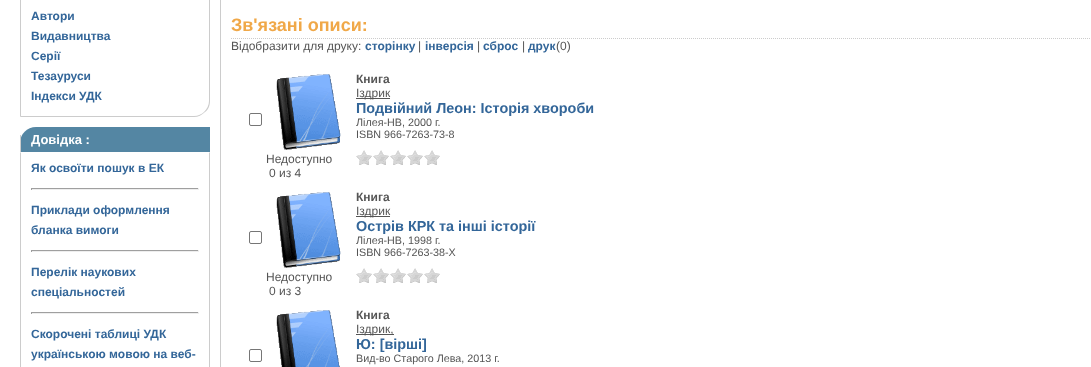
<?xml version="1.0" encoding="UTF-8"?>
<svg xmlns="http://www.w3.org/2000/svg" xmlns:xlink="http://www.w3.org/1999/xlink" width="1091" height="367">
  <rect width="100%" height="100%" fill="#ffffff" />
  <path d="M 210 -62 l -1 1 v 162 c 0 4 -2 8 -5 11 h 1 c 3 -2 5 -6 5 -11 z" fill="#cccccc" />
  <path d="M 194 117 c 4 0 8 -2 11 -5 h -1 c -2 2 -6 4 -10 4 h -173 l -1 1 z" fill="#cccccc" />
  <path d="M 20 -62 v 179 l 1 -1 v -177 z" fill="#cccccc" />
  <path d="M 36 127 h 174 v 25 h -190 v -9 c 0 -9 7 -16 16 -16 z" fill="#5486a3" />
  <rect x="20" y="135" width="1" height="17" fill="#cccccc" />
  <path d="M 210 152 l -1 1 v 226 c 0 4 -2 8 -5 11 h 1 c 3 -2 5 -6 5 -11 z" fill="#cccccc" />
  <path d="M 21 153 l -1 -1 v 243 l 1 -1 z" fill="#cccccc" />
  <rect x="31" y="188" width="168" height="1" fill="#9f9f9f" />
  <rect x="198" y="188" width="1" height="2" fill="#eeeeee" />
  <rect x="31" y="189" width="168" height="1" fill="#eeeeee" />
  <rect x="31" y="188" width="1" height="2" fill="#9f9f9f" />
  <rect x="31" y="250" width="168" height="1" fill="#9f9f9f" />
  <rect x="198" y="250" width="1" height="2" fill="#eeeeee" />
  <rect x="31" y="251" width="168" height="1" fill="#eeeeee" />
  <rect x="31" y="250" width="1" height="2" fill="#9f9f9f" />
  <rect x="31" y="312" width="168" height="1" fill="#9f9f9f" />
  <rect x="198" y="312" width="1" height="2" fill="#eeeeee" />
  <rect x="31" y="313" width="168" height="1" fill="#eeeeee" />
  <rect x="31" y="312" width="1" height="2" fill="#9f9f9f" />
  <rect x="220" width="1" height="367" fill="#cccccc" />
  <path d="M 231 38.5 h 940" fill="none" stroke="#cccccc" stroke-dasharray="1 1" />
  <rect x="356" y="98" width="34" height="1" fill="#555555" />
  <image x="356" y="150" width="16" height="15" xlink:href="image1.png" />
  <image x="373" y="150" width="16" height="15" xlink:href="image1.png" />
  <image x="390" y="150" width="16" height="15" xlink:href="image1.png" />
  <image x="407" y="150" width="16" height="15" xlink:href="image1.png" />
  <image x="424" y="150" width="16" height="15" xlink:href="image1.png" />
  <rect x="249.5" y="113.5" width="12" height="12" rx="1.5" fill="none" stroke="#767676" />
  <image x="276" y="74" width="65" height="76" xlink:href="image2.png" />
  <rect x="356" y="216" width="34" height="1" fill="#555555" />
  <image x="356" y="268" width="16" height="15" xlink:href="image1.png" />
  <image x="373" y="268" width="16" height="15" xlink:href="image1.png" />
  <image x="390" y="268" width="16" height="15" xlink:href="image1.png" />
  <image x="407" y="268" width="16" height="15" xlink:href="image1.png" />
  <image x="424" y="268" width="16" height="15" xlink:href="image1.png" />
  <rect x="249.5" y="231.5" width="12" height="12" rx="1.5" fill="none" stroke="#767676" />
  <image x="276" y="192" width="65" height="76" xlink:href="image2.png" />
  <rect x="249.5" y="349.5" width="12" height="12" rx="1.5" fill="none" stroke="#767676" />
  <image x="276" y="310" width="64" height="57" xlink:href="image3.png" />
  <rect x="356" y="334" width="38" height="1" fill="#555555" />
  <text x="31" y="20" style="font-family: Liberation Sans; font-size: 12px; font-weight: bold; fill: #336699">Автори</text>
  <text x="31" y="40" style="font-family: Liberation Sans; font-size: 12px; font-weight: bold; fill: #336699">Видавництва</text>
  <text x="31" y="60" style="font-family: Liberation Sans; font-size: 12px; font-weight: bold; fill: #336699">Серії</text>
  <text x="31" y="80" style="font-family: Liberation Sans; font-size: 12px; font-weight: bold; fill: #336699">Тезауруси</text>
  <text x="31" y="100" style="font-family: Liberation Sans; font-size: 12px; font-weight: bold; fill: #336699">Індекси УДК</text>
  <text x="31" y="144" style="font-family: Liberation Sans; font-size: 13px; font-weight: bold; fill: #ffffff">Довідка :</text>
  <text x="31" y="172" style="font-family: Liberation Sans; font-size: 12px; font-weight: bold; fill: #336699">Як освоїти пошук в ЕК</text>
  <text x="31" y="214" style="font-family: Liberation Sans; font-size: 12px; font-weight: bold; fill: #336699">Приклади оформлення</text>
  <text x="31" y="234" style="font-family: Liberation Sans; font-size: 12px; font-weight: bold; fill: #336699">бланка вимоги</text>
  <text x="31" y="276" style="font-family: Liberation Sans; font-size: 12px; font-weight: bold; fill: #336699">Перелік наукових</text>
  <text x="31" y="296" style="font-family: Liberation Sans; font-size: 12px; font-weight: bold; fill: #336699">спеціальностей</text>
  <text x="31" y="338" style="font-family: Liberation Sans; font-size: 12px; font-weight: bold; fill: #336699">Скорочені таблиці УДК</text>
  <text x="31" y="358" style="font-family: Liberation Sans; font-size: 12px; font-weight: bold; fill: #336699">українською мовою на веб-</text>
  <text x="231" y="31" style="font-family: Liberation Sans; font-size: 18px; font-weight: bold; fill: #f0a848">Зв'язані описи:</text>
  <text x="231" y="50" style="font-family: Liberation Sans; font-size: 12px; fill: #555555">Відобразити для друку:</text>
  <text x="365" y="50" style="font-family: Liberation Sans; font-size: 12px; font-weight: bold; fill: #336699">сторінку</text>
  <text x="418" y="50" style="font-family: Liberation Sans; font-size: 12px; fill: #555555">|</text>
  <text x="425" y="50" style="font-family: Liberation Sans; font-size: 12px; font-weight: bold; fill: #336699">інверсія</text>
  <text x="477" y="50" style="font-family: Liberation Sans; font-size: 12px; fill: #555555">|</text>
  <text x="483" y="50" style="font-family: Liberation Sans; font-size: 12px; font-weight: bold; fill: #336699">сброс</text>
  <text x="522" y="50" style="font-family: Liberation Sans; font-size: 12px; fill: #555555">|</text>
  <text x="528" y="50" style="font-family: Liberation Sans; font-size: 12px; font-weight: bold; fill: #336699">друк</text>
  <text x="556" y="50" style="font-family: Liberation Sans; font-size: 12px; fill: #555555">(0)</text>
  <text x="356" y="83" style="font-family: Liberation Sans; font-size: 12px; font-weight: bold; fill: #555555">Книга</text>
  <text x="356" y="97" style="font-family: Liberation Sans; font-size: 12px; fill: #555555">Іздрик</text>
  <text x="356" y="113" style="font-family: Liberation Sans; font-size: 14.4px; font-weight: bold; fill: #336699">Подвійний Леон: Історія хвороби</text>
  <text x="356" y="126" style="font-family: Liberation Sans; font-size: 10.75px; fill: #555555">Лілея-НВ, 2000 г.</text>
  <text x="356" y="138" style="font-family: Liberation Sans; font-size: 10.75px; fill: #555555">ISBN 966-7263-73-8</text>
  <text x="266" y="163" style="font-family: Liberation Sans; font-size: 12px; fill: #555555">Недоступно</text>
  <text x="269" y="177" style="font-family: Liberation Sans; font-size: 12px; fill: #555555">0 из 4</text>
  <text x="356" y="201" style="font-family: Liberation Sans; font-size: 12px; font-weight: bold; fill: #555555">Книга</text>
  <text x="356" y="215" style="font-family: Liberation Sans; font-size: 12px; fill: #555555">Іздрик</text>
  <text x="356" y="231" style="font-family: Liberation Sans; font-size: 14.4px; font-weight: bold; fill: #336699">Острів КРК та інші історії</text>
  <text x="356" y="244" style="font-family: Liberation Sans; font-size: 10.75px; fill: #555555">Лілея-НВ, 1998 г.</text>
  <text x="356" y="256" style="font-family: Liberation Sans; font-size: 10.75px; fill: #555555">ISBN 966-7263-38-X</text>
  <text x="266" y="281" style="font-family: Liberation Sans; font-size: 12px; fill: #555555">Недоступно</text>
  <text x="269" y="295" style="font-family: Liberation Sans; font-size: 12px; fill: #555555">0 из 3</text>
  <text x="356" y="319" style="font-family: Liberation Sans; font-size: 12px; font-weight: bold; fill: #555555">Книга</text>
  <text x="356" y="333" style="font-family: Liberation Sans; font-size: 12px; fill: #555555">Іздрик,</text>
  <text x="356" y="349" style="font-family: Liberation Sans; font-size: 14.4px; font-weight: bold; fill: #336699">Ю: [вірші]</text>
  <text x="356" y="362" style="font-family: Liberation Sans; font-size: 10.75px; fill: #555555">Вид-во Старого Лева, 2013 г.</text>
</svg>
